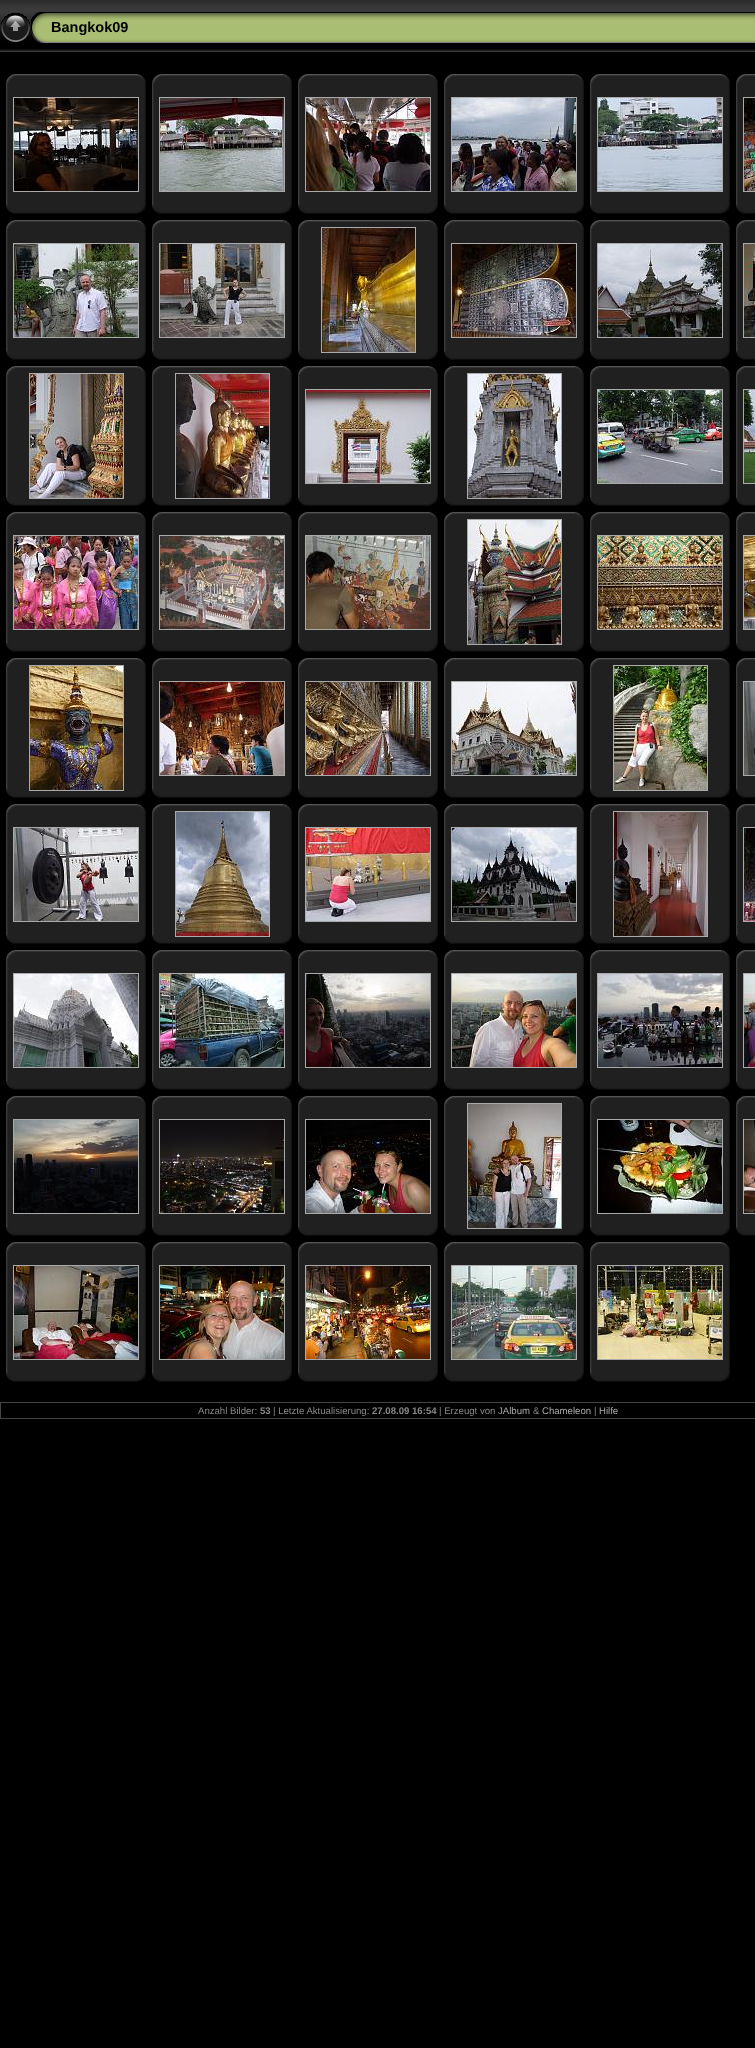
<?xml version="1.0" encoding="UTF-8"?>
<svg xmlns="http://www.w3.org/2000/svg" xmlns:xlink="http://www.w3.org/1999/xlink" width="755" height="2048">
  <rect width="100%" height="100%" fill="#000000" />
  <image x="0" y="0" width="755" height="52" xlink:href="image1.png" />
  <image x="1" y="13" width="29" height="29" xlink:href="image2.png" />
  <image x="31" y="12" width="20" height="31" xlink:href="image3.png" />
  <image x="51" y="12" width="704" height="31" xlink:href="image4.png" />
  <image x="6" y="74" width="140" height="140" xlink:href="image5.png" />
  <rect x="13.5" y="97.5" width="125" height="94" fill="none" stroke="#aaaaaa" />
  <image x="14" y="98" width="124" height="93" xlink:href="image6.png" />
  <image x="152" y="74" width="140" height="140" xlink:href="image5.png" />
  <rect x="159.5" y="97.5" width="125" height="94" fill="none" stroke="#aaaaaa" />
  <image x="160" y="98" width="124" height="93" xlink:href="image7.png" />
  <image x="298" y="74" width="140" height="140" xlink:href="image5.png" />
  <rect x="305.5" y="97.5" width="125" height="94" fill="none" stroke="#aaaaaa" />
  <image x="306" y="98" width="124" height="93" xlink:href="image8.png" />
  <image x="444" y="74" width="140" height="140" xlink:href="image5.png" />
  <rect x="451.5" y="97.5" width="125" height="94" fill="none" stroke="#aaaaaa" />
  <image x="452" y="98" width="124" height="93" xlink:href="image9.png" />
  <image x="590" y="74" width="140" height="140" xlink:href="image5.png" />
  <rect x="597.5" y="97.5" width="125" height="94" fill="none" stroke="#aaaaaa" />
  <image x="598" y="98" width="124" height="93" xlink:href="image10.png" />
  <image x="736" y="74" width="19" height="140" xlink:href="image11.png" />
  <rect x="743.5" y="97.5" width="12" height="94" fill="none" stroke="#aaaaaa" />
  <image x="744" y="98" width="11" height="93" xlink:href="image12.png" />
  <image x="6" y="220" width="140" height="140" xlink:href="image5.png" />
  <rect x="13.5" y="243.5" width="125" height="94" fill="none" stroke="#aaaaaa" />
  <image x="14" y="244" width="124" height="93" xlink:href="image13.png" />
  <image x="152" y="220" width="140" height="140" xlink:href="image5.png" />
  <rect x="159.5" y="243.5" width="125" height="94" fill="none" stroke="#aaaaaa" />
  <image x="160" y="244" width="124" height="93" xlink:href="image14.png" />
  <image x="298" y="220" width="140" height="140" xlink:href="image5.png" />
  <rect x="321.5" y="227.5" width="94" height="125" fill="none" stroke="#aaaaaa" />
  <image x="322" y="228" width="93" height="124" xlink:href="image15.png" />
  <image x="444" y="220" width="140" height="140" xlink:href="image5.png" />
  <rect x="451.5" y="243.5" width="125" height="94" fill="none" stroke="#aaaaaa" />
  <image x="452" y="244" width="124" height="93" xlink:href="image16.png" />
  <image x="590" y="220" width="140" height="140" xlink:href="image5.png" />
  <rect x="597.5" y="243.5" width="125" height="94" fill="none" stroke="#aaaaaa" />
  <image x="598" y="244" width="124" height="93" xlink:href="image17.png" />
  <image x="736" y="220" width="19" height="140" xlink:href="image11.png" />
  <rect x="743.5" y="243.5" width="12" height="94" fill="none" stroke="#aaaaaa" />
  <image x="744" y="244" width="11" height="93" xlink:href="image18.png" />
  <image x="6" y="366" width="140" height="140" xlink:href="image5.png" />
  <rect x="29.5" y="373.5" width="94" height="125" fill="none" stroke="#aaaaaa" />
  <image x="30" y="374" width="93" height="124" xlink:href="image19.png" />
  <image x="152" y="366" width="140" height="140" xlink:href="image5.png" />
  <rect x="175.5" y="373.5" width="94" height="125" fill="none" stroke="#aaaaaa" />
  <image x="176" y="374" width="93" height="124" xlink:href="image20.png" />
  <image x="298" y="366" width="140" height="140" xlink:href="image5.png" />
  <rect x="305.5" y="389.5" width="125" height="94" fill="none" stroke="#aaaaaa" />
  <image x="306" y="390" width="124" height="93" xlink:href="image21.png" />
  <image x="444" y="366" width="140" height="140" xlink:href="image5.png" />
  <rect x="467.5" y="373.5" width="94" height="125" fill="none" stroke="#aaaaaa" />
  <image x="468" y="374" width="93" height="124" xlink:href="image22.png" />
  <image x="590" y="366" width="140" height="140" xlink:href="image5.png" />
  <rect x="597.5" y="389.5" width="125" height="94" fill="none" stroke="#aaaaaa" />
  <image x="598" y="390" width="124" height="93" xlink:href="image23.png" />
  <image x="736" y="366" width="19" height="140" xlink:href="image11.png" />
  <rect x="743.5" y="389.5" width="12" height="94" fill="none" stroke="#aaaaaa" />
  <image x="744" y="390" width="11" height="93" xlink:href="image24.png" />
  <image x="6" y="512" width="140" height="140" xlink:href="image5.png" />
  <rect x="13.5" y="535.5" width="125" height="94" fill="none" stroke="#aaaaaa" />
  <image x="14" y="536" width="124" height="93" xlink:href="image25.png" />
  <image x="152" y="512" width="140" height="140" xlink:href="image5.png" />
  <rect x="159.5" y="535.5" width="125" height="94" fill="none" stroke="#aaaaaa" />
  <image x="160" y="536" width="124" height="93" xlink:href="image26.png" />
  <image x="298" y="512" width="140" height="140" xlink:href="image5.png" />
  <rect x="305.5" y="535.5" width="125" height="94" fill="none" stroke="#aaaaaa" />
  <image x="306" y="536" width="124" height="93" xlink:href="image27.png" />
  <image x="444" y="512" width="140" height="140" xlink:href="image5.png" />
  <rect x="467.5" y="519.5" width="94" height="125" fill="none" stroke="#aaaaaa" />
  <image x="468" y="520" width="93" height="124" xlink:href="image28.png" />
  <image x="590" y="512" width="140" height="140" xlink:href="image5.png" />
  <rect x="597.5" y="535.5" width="125" height="94" fill="none" stroke="#aaaaaa" />
  <image x="598" y="536" width="124" height="93" xlink:href="image29.png" />
  <image x="736" y="512" width="19" height="140" xlink:href="image11.png" />
  <rect x="743.5" y="535.5" width="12" height="94" fill="none" stroke="#aaaaaa" />
  <image x="744" y="536" width="11" height="93" xlink:href="image30.png" />
  <image x="6" y="658" width="140" height="140" xlink:href="image5.png" />
  <rect x="29.5" y="665.5" width="94" height="125" fill="none" stroke="#aaaaaa" />
  <image x="30" y="666" width="93" height="124" xlink:href="image31.png" />
  <image x="152" y="658" width="140" height="140" xlink:href="image5.png" />
  <rect x="159.5" y="681.5" width="125" height="94" fill="none" stroke="#aaaaaa" />
  <image x="160" y="682" width="124" height="93" xlink:href="image32.png" />
  <image x="298" y="658" width="140" height="140" xlink:href="image5.png" />
  <rect x="305.5" y="681.5" width="125" height="94" fill="none" stroke="#aaaaaa" />
  <image x="306" y="682" width="124" height="93" xlink:href="image33.png" />
  <image x="444" y="658" width="140" height="140" xlink:href="image5.png" />
  <rect x="451.5" y="681.5" width="125" height="94" fill="none" stroke="#aaaaaa" />
  <image x="452" y="682" width="124" height="93" xlink:href="image34.png" />
  <image x="590" y="658" width="140" height="140" xlink:href="image5.png" />
  <rect x="613.5" y="665.5" width="94" height="125" fill="none" stroke="#aaaaaa" />
  <image x="614" y="666" width="93" height="124" xlink:href="image35.png" />
  <image x="736" y="658" width="19" height="140" xlink:href="image11.png" />
  <rect x="743.5" y="681.5" width="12" height="94" fill="none" stroke="#aaaaaa" />
  <image x="744" y="682" width="11" height="93" xlink:href="image36.png" />
  <image x="6" y="804" width="140" height="140" xlink:href="image5.png" />
  <rect x="13.5" y="827.5" width="125" height="94" fill="none" stroke="#aaaaaa" />
  <image x="14" y="828" width="124" height="93" xlink:href="image37.png" />
  <image x="152" y="804" width="140" height="140" xlink:href="image5.png" />
  <rect x="175.5" y="811.5" width="94" height="125" fill="none" stroke="#aaaaaa" />
  <image x="176" y="812" width="93" height="124" xlink:href="image38.png" />
  <image x="298" y="804" width="140" height="140" xlink:href="image5.png" />
  <rect x="305.5" y="827.5" width="125" height="94" fill="none" stroke="#aaaaaa" />
  <image x="306" y="828" width="124" height="93" xlink:href="image39.png" />
  <image x="444" y="804" width="140" height="140" xlink:href="image5.png" />
  <rect x="451.5" y="827.5" width="125" height="94" fill="none" stroke="#aaaaaa" />
  <image x="452" y="828" width="124" height="93" xlink:href="image40.png" />
  <image x="590" y="804" width="140" height="140" xlink:href="image5.png" />
  <rect x="613.5" y="811.5" width="94" height="125" fill="none" stroke="#aaaaaa" />
  <image x="614" y="812" width="93" height="124" xlink:href="image41.png" />
  <image x="736" y="804" width="19" height="140" xlink:href="image11.png" />
  <rect x="743.5" y="827.5" width="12" height="94" fill="none" stroke="#aaaaaa" />
  <image x="744" y="828" width="11" height="93" xlink:href="image42.png" />
  <image x="6" y="950" width="140" height="140" xlink:href="image5.png" />
  <rect x="13.5" y="973.5" width="125" height="94" fill="none" stroke="#aaaaaa" />
  <image x="14" y="974" width="124" height="93" xlink:href="image43.png" />
  <image x="152" y="950" width="140" height="140" xlink:href="image5.png" />
  <rect x="159.5" y="973.5" width="125" height="94" fill="none" stroke="#aaaaaa" />
  <image x="160" y="974" width="124" height="93" xlink:href="image44.png" />
  <image x="298" y="950" width="140" height="140" xlink:href="image5.png" />
  <rect x="305.5" y="973.5" width="125" height="94" fill="none" stroke="#aaaaaa" />
  <image x="306" y="974" width="124" height="93" xlink:href="image45.png" />
  <image x="444" y="950" width="140" height="140" xlink:href="image5.png" />
  <rect x="451.5" y="973.5" width="125" height="94" fill="none" stroke="#aaaaaa" />
  <image x="452" y="974" width="124" height="93" xlink:href="image46.png" />
  <image x="590" y="950" width="140" height="140" xlink:href="image5.png" />
  <rect x="597.5" y="973.5" width="125" height="94" fill="none" stroke="#aaaaaa" />
  <image x="598" y="974" width="124" height="93" xlink:href="image47.png" />
  <image x="736" y="950" width="19" height="140" xlink:href="image11.png" />
  <rect x="743.5" y="973.5" width="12" height="94" fill="none" stroke="#aaaaaa" />
  <image x="744" y="974" width="11" height="93" xlink:href="image48.png" />
  <image x="6" y="1096" width="140" height="140" xlink:href="image5.png" />
  <rect x="13.5" y="1119.5" width="125" height="94" fill="none" stroke="#aaaaaa" />
  <image x="14" y="1120" width="124" height="93" xlink:href="image49.png" />
  <image x="152" y="1096" width="140" height="140" xlink:href="image5.png" />
  <rect x="159.5" y="1119.5" width="125" height="94" fill="none" stroke="#aaaaaa" />
  <image x="160" y="1120" width="124" height="93" xlink:href="image50.png" />
  <image x="298" y="1096" width="140" height="140" xlink:href="image5.png" />
  <rect x="305.5" y="1119.5" width="125" height="94" fill="none" stroke="#aaaaaa" />
  <image x="306" y="1120" width="124" height="93" xlink:href="image51.png" />
  <image x="444" y="1096" width="140" height="140" xlink:href="image5.png" />
  <rect x="467.5" y="1103.5" width="94" height="125" fill="none" stroke="#aaaaaa" />
  <image x="468" y="1104" width="93" height="124" xlink:href="image52.png" />
  <image x="590" y="1096" width="140" height="140" xlink:href="image5.png" />
  <rect x="597.5" y="1119.5" width="125" height="94" fill="none" stroke="#aaaaaa" />
  <image x="598" y="1120" width="124" height="93" xlink:href="image53.png" />
  <image x="736" y="1096" width="19" height="140" xlink:href="image11.png" />
  <rect x="743.5" y="1119.5" width="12" height="94" fill="none" stroke="#aaaaaa" />
  <image x="744" y="1120" width="11" height="93" xlink:href="image54.png" />
  <image x="6" y="1242" width="140" height="140" xlink:href="image5.png" />
  <rect x="13.5" y="1265.5" width="125" height="94" fill="none" stroke="#aaaaaa" />
  <image x="14" y="1266" width="124" height="93" xlink:href="image55.png" />
  <image x="152" y="1242" width="140" height="140" xlink:href="image5.png" />
  <rect x="159.5" y="1265.5" width="125" height="94" fill="none" stroke="#aaaaaa" />
  <image x="160" y="1266" width="124" height="93" xlink:href="image56.png" />
  <image x="298" y="1242" width="140" height="140" xlink:href="image5.png" />
  <rect x="305.5" y="1265.5" width="125" height="94" fill="none" stroke="#aaaaaa" />
  <image x="306" y="1266" width="124" height="93" xlink:href="image57.png" />
  <image x="444" y="1242" width="140" height="140" xlink:href="image5.png" />
  <rect x="451.5" y="1265.5" width="125" height="94" fill="none" stroke="#aaaaaa" />
  <image x="452" y="1266" width="124" height="93" xlink:href="image58.png" />
  <image x="590" y="1242" width="140" height="140" xlink:href="image5.png" />
  <rect x="597.5" y="1265.5" width="125" height="94" fill="none" stroke="#aaaaaa" />
  <image x="598" y="1266" width="124" height="93" xlink:href="image59.png" />
  <rect y="1402" width="755" height="1" fill="#444444" />
  <rect y="1418" width="755" height="1" fill="#444444" />
  <rect y="1402" width="1" height="17" fill="#444444" />
  <text x="51" y="32" style="font-family: Liberation Sans; font-size: 14.5px; font-weight: bold; fill: #000000">Bangkok09</text>
  <text x="198" y="1414" style="font-family: Liberation Sans; font-size: 9.6px; fill: #888888">Anzahl Bilder:</text>
  <text x="260" y="1414" style="font-family: Liberation Sans; font-size: 9.6px; font-weight: bold; fill: #888888">53</text>
  <text x="273" y="1414" style="font-family: Liberation Sans; font-size: 9.6px; fill: #888888">| Letzte Aktualisierung:</text>
  <text x="372" y="1414" style="font-family: Liberation Sans; font-size: 9.6px; font-weight: bold; fill: #888888">27.08.09 16:54</text>
  <text x="439" y="1414" style="font-family: Liberation Sans; font-size: 9.6px; fill: #888888">| Erzeugt von</text>
  <text x="498" y="1414" style="font-family: Liberation Sans; font-size: 9.6px; fill: #aaaaaa">JAlbum</text>
  <text x="533" y="1414" style="font-family: Liberation Sans; font-size: 9.6px; fill: #888888">&amp;</text>
  <text x="542" y="1414" style="font-family: Liberation Sans; font-size: 9.6px; fill: #aaaaaa">Chameleon</text>
  <text x="594" y="1414" style="font-family: Liberation Sans; font-size: 9.6px; fill: #888888">|</text>
  <text x="599" y="1414" style="font-family: Liberation Sans; font-size: 9.6px; fill: #aaaaaa">Hilfe</text>
</svg>
